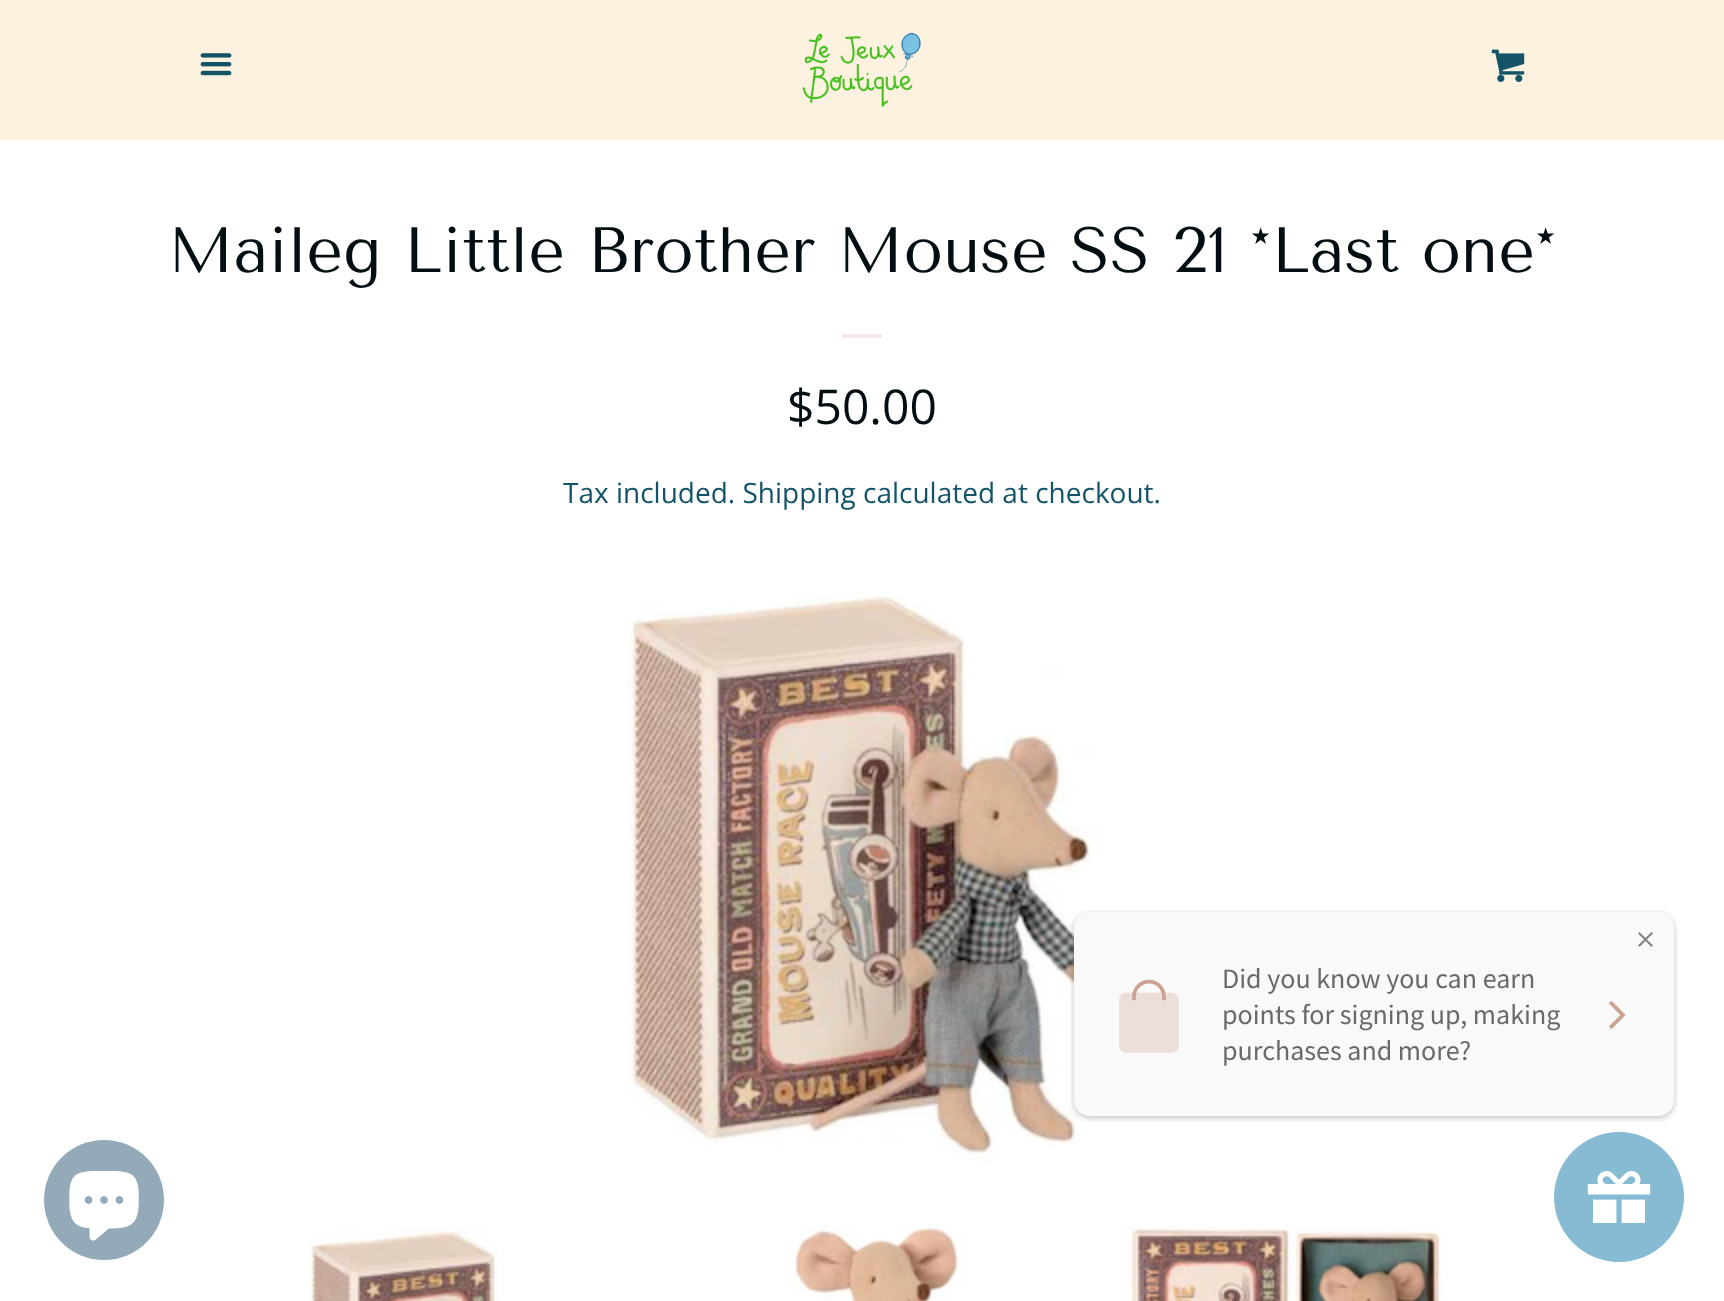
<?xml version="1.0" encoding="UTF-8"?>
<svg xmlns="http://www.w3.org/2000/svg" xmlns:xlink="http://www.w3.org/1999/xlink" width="1724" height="1301">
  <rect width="100%" height="100%" fill="#fcf2df" />
  <image x="200" y="53" width="32" height="23" xlink:href="image1.png" />
  <image x="802" y="32" width="119" height="75" xlink:href="image2.png" />
  <image x="1491" y="49" width="34" height="33" xlink:href="image3.png" />
  <rect y="140" width="1724" height="1161" fill="#ffffff" />
  <rect x="842" y="334" width="40" height="4" fill="#f5eae7" />
  <image x="628" y="594" width="476" height="569" xlink:href="image4.png" />
  <image x="308" y="1226" width="191" height="75" xlink:href="image5.png" />
  <image x="787" y="1226" width="175" height="75" xlink:href="image6.png" />
  <image x="1126" y="1226" width="320" height="75" xlink:href="image7.png" />
  <image x="1070" y="910" width="608" height="212" xlink:href="image8.png" />
  <circle cx="104" cy="1200" r="60" fill="#94aab9" />
  <image x="69" y="1171" width="70" height="70" xlink:href="image9.png" />
  <image x="1554" y="1132" width="130" height="130" xlink:href="image10.png" />
  <text x="168" y="272" style="font-family: Tenor Sans; font-size: 64px; fill: #030e12">Maileg Little Brother Mouse SS 21 *Last one*</text>
  <text x="787" y="424" style="font-family: Open Sans; font-size: 48px; fill: #030e12">$50.00</text>
  <text x="563" y="503" style="font-family: Open Sans; font-size: 28px; fill: #135468">Tax included. Shipping calculated at checkout.</text>
</svg>
